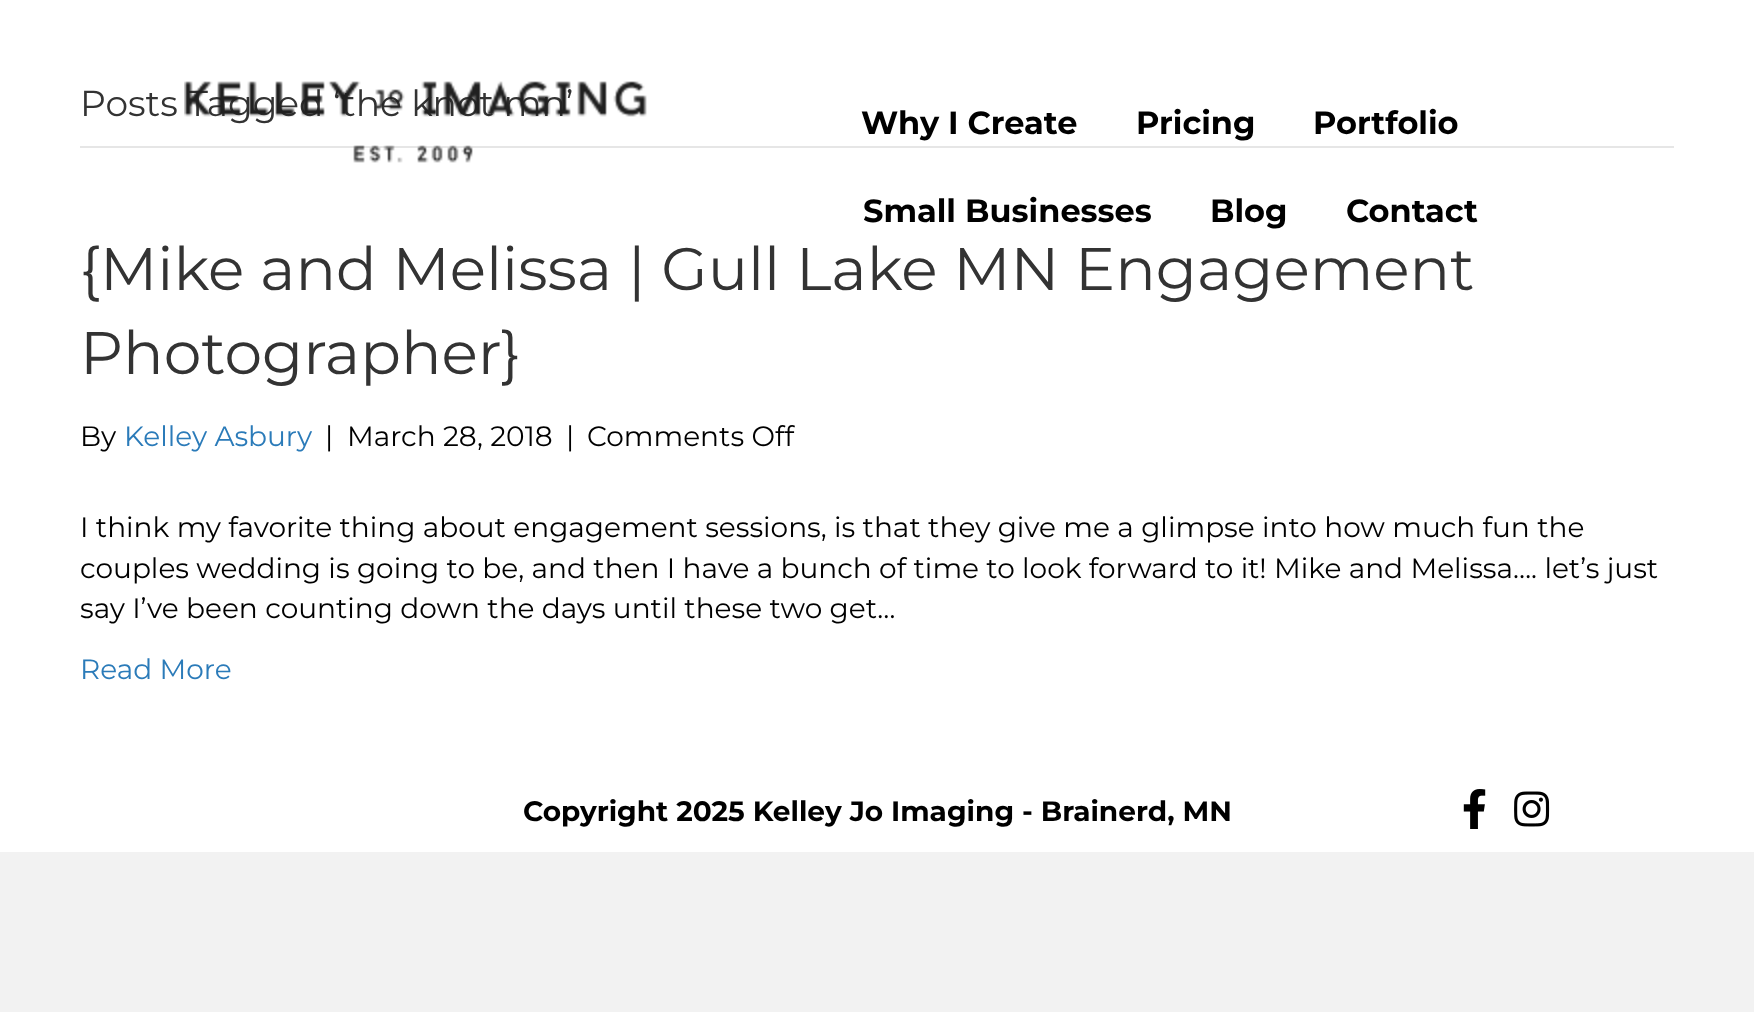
<?xml version="1.0" encoding="UTF-8"?>
<svg xmlns="http://www.w3.org/2000/svg" xmlns:xlink="http://www.w3.org/1999/xlink" width="1754" height="1012">
  <rect width="100%" height="100%" fill="#f2f2f2" />
  <rect width="1754" height="852" fill="#ffffff" />
  <rect x="80" y="146" width="1594" height="2" fill="#e6e6e6" />
  <image x="1463" y="789" width="23" height="40" xlink:href="image2.png" />
  <image x="1514" y="791" width="36" height="36" xlink:href="image3.png" />
  <text x="80" y="116" style="font-family: Montserrat; font-size: 36px; fill: #333333">Posts Tagged ‘the knot mn’</text>
  <text x="80" y="290" style="font-family: Montserrat; font-size: 60px; fill: #333333">{Mike and Melissa | Gull Lake MN Engagement</text>
  <text x="80" y="374" style="font-family: Montserrat; font-size: 60px; fill: #333333">Photographer}</text>
  <text x="80" y="446" style="font-family: Montserrat; font-size: 28px; fill: #000000">By</text>
  <text x="124" y="446" style="font-family: Montserrat; font-size: 28px; fill: #2b7bb9">Kelley Asbury</text>
  <text x="325" y="446" style="font-family: Montserrat; font-size: 28px; fill: #000000">|</text>
  <text x="347" y="446" style="font-family: Montserrat; font-size: 28px; fill: #000000">March 28, 2018</text>
  <text x="566" y="446" style="font-family: Montserrat; font-size: 28px; fill: #000000">|</text>
  <text x="587" y="446" style="font-family: Montserrat; font-size: 28px; fill: #000000">Comments Off</text>
  <text x="80" y="537" style="font-family: Montserrat; font-size: 28px; fill: #000000">I think my favorite thing about engagement sessions, is that they give me a glimpse into how much fun the</text>
  <text x="80" y="578" style="font-family: Montserrat; font-size: 28px; fill: #000000">couples wedding is going to be, and then I have a bunch of time to look forward to it! Mike and Melissa…. let’s just</text>
  <text x="80" y="618" style="font-family: Montserrat; font-size: 28px; fill: #000000">say I’ve been counting down the days until these two get…</text>
  <text x="80" y="679" style="font-family: Montserrat; font-size: 28px; fill: #2b7bb9">Read More</text>
  <image x="184" y="81" width="463" height="82" xlink:href="image1.png" />
  <text x="861" y="134" style="font-family: Montserrat; font-size: 32px; font-weight: bold; fill: #000000">Why I Create</text>
  <text x="1136" y="134" style="font-family: Montserrat; font-size: 32px; font-weight: bold; fill: #000000">Pricing</text>
  <text x="1313" y="134" style="font-family: Montserrat; font-size: 32px; font-weight: bold; fill: #000000">Portfolio</text>
  <text x="863" y="222" style="font-family: Montserrat; font-size: 32px; font-weight: bold; fill: #000000">Small Businesses</text>
  <text x="1210" y="222" style="font-family: Montserrat; font-size: 32px; font-weight: bold; fill: #000000">Blog</text>
  <text x="1346" y="222" style="font-family: Montserrat; font-size: 32px; font-weight: bold; fill: #000000">Contact</text>
  <text x="523" y="821" style="font-family: Montserrat; font-size: 28px; font-weight: bold; fill: #000000">Copyright 2025 Kelley Jo Imaging - Brainerd, MN</text>
</svg>
